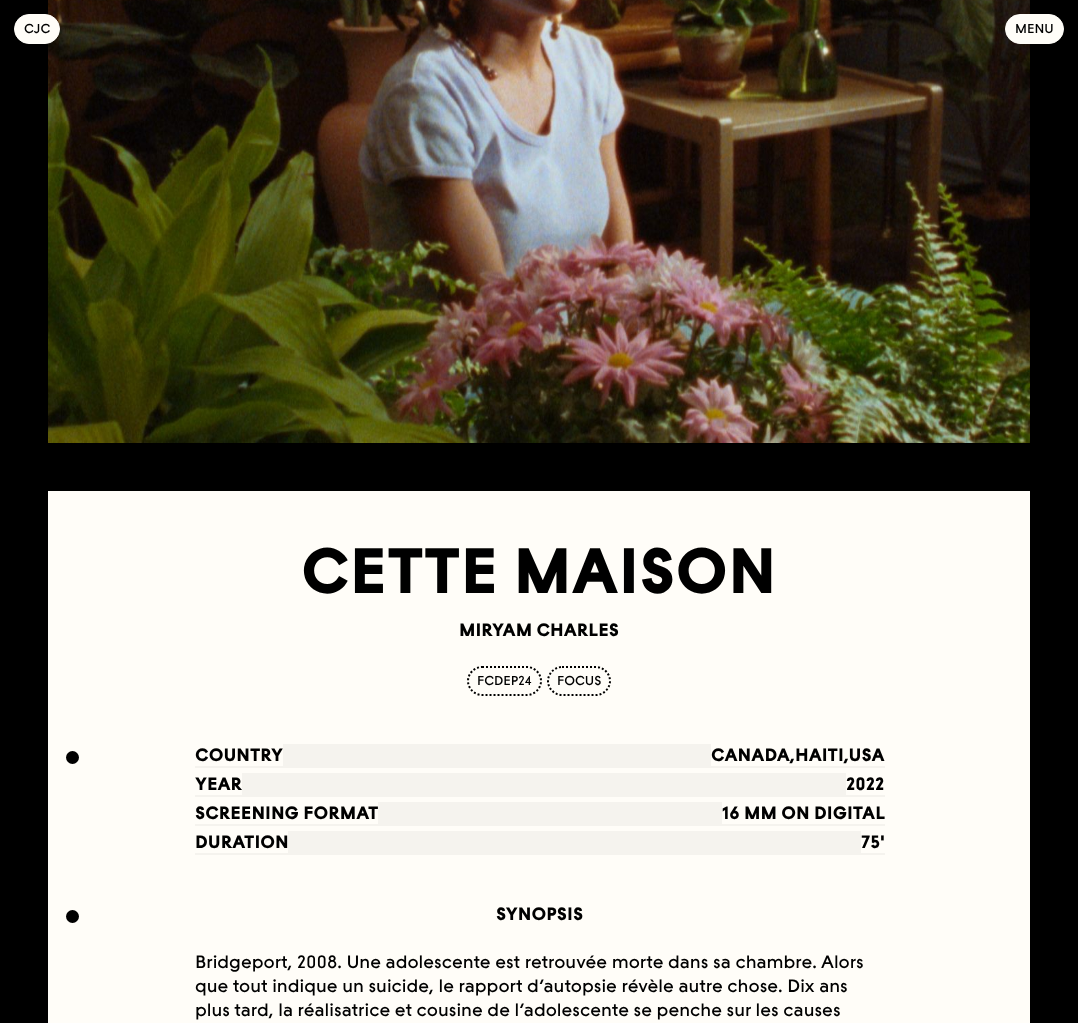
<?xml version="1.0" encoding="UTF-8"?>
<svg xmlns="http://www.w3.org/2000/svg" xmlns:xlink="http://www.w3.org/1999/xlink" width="1078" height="1023">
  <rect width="100%" height="100%" fill="#000000" />
  <image x="48" y="0" width="982" height="443" xlink:href="image1.png" />
  <rect x="14.5" y="14.5" width="45" height="29" rx="14.5" fill="#fffdf8" stroke="#fffdf8" />
  <rect x="1005.5" y="14.5" width="58" height="29" rx="14.5" fill="#fffdf8" stroke="#fffdf8" />
  <rect x="48" y="491" width="982" height="532" fill="#fffdf8" />
  <path d="M 482 667 h 45 c 7.5 0 14 6.5 14 14 c 0 7.5 -6.5 14 -14 14 h -45 c -7.5 0 -14 -6.5 -14 -14 c 0 -7.5 6.5 -14 14 -14 z" fill="none" stroke="#000000" stroke-width="2" stroke-dasharray="2 2" />
  <path d="M 562 667 h 34 c 7.5 0 14 6.5 14 14 c 0 7.5 -6.5 14 -14 14 h -34 c -7.5 0 -14 -6.5 -14 -14 c 0 -7.5 6.5 -14 14 -14 z" fill="none" stroke="#000000" stroke-width="2" stroke-dasharray="2 2" />
  <circle cx="72.5" cy="757.5" r="6.5" fill="#000000" />
  <rect x="195" y="744" width="690" height="24" fill="#f5f3ee" />
  <rect x="195" y="744" width="88" height="22" fill="#fffdf8" />
  <rect x="711" y="744" width="174" height="22" fill="#fffdf8" />
  <rect x="195" y="773" width="690" height="24" fill="#f5f3ee" />
  <rect x="195" y="773" width="47" height="22" fill="#fffdf8" />
  <rect x="846" y="773" width="39" height="22" fill="#fffdf8" />
  <rect x="195" y="802" width="690" height="24" fill="#f5f3ee" />
  <rect x="195" y="802" width="183" height="22" fill="#fffdf8" />
  <rect x="722" y="802" width="163" height="22" fill="#fffdf8" />
  <rect x="195" y="831" width="690" height="24" fill="#f5f3ee" />
  <rect x="195" y="831" width="93" height="22" fill="#fffdf8" />
  <rect x="861" y="831" width="24" height="22" fill="#fffdf8" />
  <circle cx="72.5" cy="916.5" r="6.5" fill="#000000" />
  <text x="24" y="33" style="font-family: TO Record; font-size: 13px; font-weight: 500; fill: #000000">CJC</text>
  <text x="1015" y="33" style="font-family: TO Record; font-size: 13px; font-weight: 500; fill: #000000">MENU</text>
  <text x="301" y="593" style="font-family: TO Record; font-size: 64px; font-weight: 900; fill: #000000">CETTE MAISON</text>
  <text x="459" y="636" style="font-family: TO Record; font-size: 18px; font-weight: 900; fill: #000000">MIRYAM CHARLES</text>
  <text x="477" y="685" style="font-family: TO Record; font-size: 13px; font-weight: 500; fill: #000000">FCDEP24</text>
  <text x="557" y="685" style="font-family: TO Record; font-size: 13px; font-weight: 500; fill: #000000">FOCUS</text>
  <text x="195" y="761" style="font-family: TO Record; font-size: 18px; font-weight: 900; fill: #000000">COUNTRY</text>
  <text x="711" y="761" style="font-family: TO Record; font-size: 18px; font-weight: 900; fill: #000000">CANADA,HAITI,USA</text>
  <text x="195" y="790" style="font-family: TO Record; font-size: 18px; font-weight: 900; fill: #000000">YEAR</text>
  <text x="846" y="790" style="font-family: TO Record; font-size: 18px; font-weight: 900; fill: #000000">2022</text>
  <text x="195" y="819" style="font-family: TO Record; font-size: 18px; font-weight: 900; fill: #000000">SCREENING FORMAT</text>
  <text x="722" y="819" style="font-family: TO Record; font-size: 18px; font-weight: 900; fill: #000000">16 MM ON DIGITAL</text>
  <text x="195" y="848" style="font-family: TO Record; font-size: 18px; font-weight: 900; fill: #000000">DURATION</text>
  <text x="861" y="848" style="font-family: TO Record; font-size: 18px; font-weight: 900; fill: #000000">75'</text>
  <text x="496" y="920" style="font-family: TO Record; font-size: 18px; font-weight: 900; fill: #000000">SYNOPSIS</text>
  <text x="195" y="968" style="font-family: TO Record; font-size: 18px; font-weight: 500; fill: #000000">Bridgeport, 2008. Une adolescente est retrouvée morte dans sa chambre. Alors</text>
  <text x="195" y="992" style="font-family: TO Record; font-size: 18px; font-weight: 500; fill: #000000">que tout indique un suicide, le rapport d’autopsie révèle autre chose. Dix ans</text>
  <text x="195" y="1016" style="font-family: TO Record; font-size: 18px; font-weight: 500; fill: #000000">plus tard, la réalisatrice et cousine de l’adolescente se penche sur les causes</text>
</svg>
